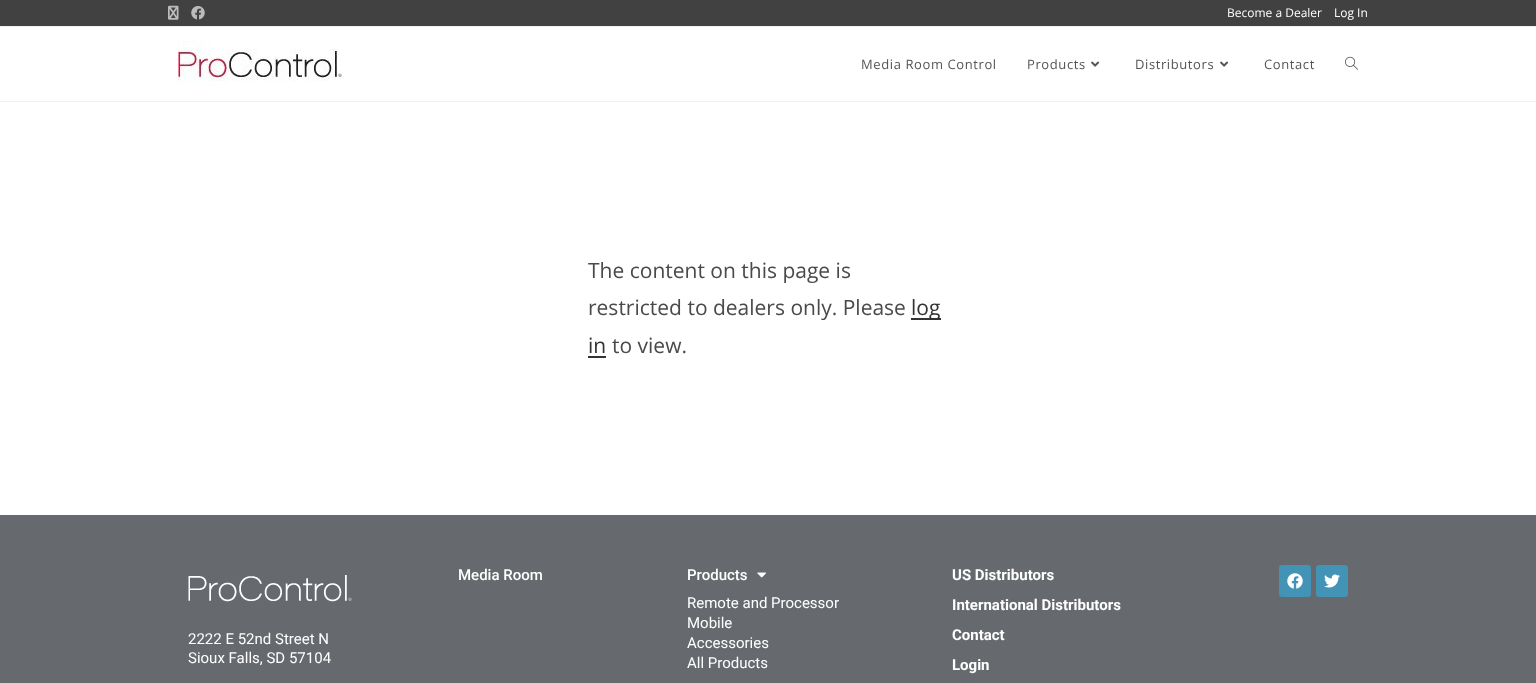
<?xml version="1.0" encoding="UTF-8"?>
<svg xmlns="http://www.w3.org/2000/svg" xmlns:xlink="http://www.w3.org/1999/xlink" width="1536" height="683">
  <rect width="100%" height="100%" fill="#ffffff" />
  <rect width="1536" height="26" fill="#414141" />
  <rect y="26" width="1536" height="1" fill="#f1f1f1" />
  <image x="168" y="5" width="11" height="15" xlink:href="image1.png" />
  <image x="191" y="6" width="14" height="14" xlink:href="image2.png" />
  <rect y="101" width="1536" height="1" fill="#f1f1f1" />
  <image x="178" y="41" width="164" height="45" xlink:href="image3.png" />
  <image x="1091" y="61" width="9" height="6" xlink:href="image4.png" />
  <image x="1220" y="61" width="9" height="6" xlink:href="image4.png" />
  <image x="1345" y="56" width="13" height="14" xlink:href="image5.png" />
  <rect x="911" y="318" width="30" height="2" fill="#333333" />
  <rect x="588" y="356" width="18" height="2" fill="#333333" />
  <rect y="515" width="1536" height="168" fill="#66696e" />
  <image x="188" y="575" width="164" height="27" xlink:href="image6.png" />
  <image x="757" y="572" width="9" height="6" xlink:href="image7.png" />
  <rect x="1279" y="565" width="32" height="32" rx="3" fill="#4293b5" />
  <image x="1287" y="573" width="16" height="16" xlink:href="image8.png" />
  <rect x="1316" y="565" width="32" height="32" rx="3" fill="#4293b5" />
  <image x="1324" y="574" width="16" height="14" xlink:href="image9.png" />
  <text x="1227" y="17" style="font-family: Open Sans; font-size: 12px; fill: #ffffff">Become a Dealer</text>
  <text x="1334" y="17" style="font-family: Open Sans; font-size: 12px; fill: #ffffff">Log In</text>
  <text x="861" y="69" style="font-family: Open Sans; font-size: 13px; letter-spacing: 0.6px; fill: #555555">Media Room Control</text>
  <text x="1027" y="69" style="font-family: Open Sans; font-size: 13px; letter-spacing: 0.6px; fill: #555555">Products</text>
  <text x="1135" y="69" style="font-family: Open Sans; font-size: 13px; letter-spacing: 0.6px; fill: #555555">Distributors</text>
  <text x="1264" y="69" style="font-family: Open Sans; font-size: 13px; letter-spacing: 0.6px; fill: #555555">Contact</text>
  <text x="588" y="278" style="font-family: Open Sans; font-size: 21px; fill: #4a4a4a">The content on this page is</text>
  <text x="588" y="315" style="font-family: Open Sans; font-size: 21px; fill: #4a4a4a">restricted to dealers only. Please</text>
  <text x="911" y="315" style="font-family: Open Sans; font-size: 21px; fill: #333333">log</text>
  <text x="588" y="353" style="font-family: Open Sans; font-size: 21px; fill: #333333">in</text>
  <text x="612" y="353" style="font-family: Open Sans; font-size: 21px; fill: #4a4a4a">to view.</text>
  <text x="188" y="644" style="font-family: Roboto; font-size: 15px; fill: #ffffff">2222 E 52nd Street N</text>
  <text x="188" y="663" style="font-family: Roboto; font-size: 15px; fill: #ffffff">Sioux Falls, SD 57104</text>
  <text x="458" y="580" style="font-family: Roboto; font-size: 15px; font-weight: 500; fill: #ffffff">Media Room</text>
  <text x="687" y="580" style="font-family: Roboto; font-size: 15px; font-weight: 500; fill: #ffffff">Products</text>
  <text x="687" y="608" style="font-family: Roboto; font-size: 15px; fill: #ffffff">Remote and Processor</text>
  <text x="687" y="628" style="font-family: Roboto; font-size: 15px; fill: #ffffff">Mobile</text>
  <text x="687" y="648" style="font-family: Roboto; font-size: 15px; fill: #ffffff">Accessories</text>
  <text x="687" y="668" style="font-family: Roboto; font-size: 15px; fill: #ffffff">All Products</text>
  <text x="952" y="580" style="font-family: Roboto; font-size: 15px; font-weight: bold; fill: #ffffff">US Distributors</text>
  <text x="952" y="610" style="font-family: Roboto; font-size: 15px; font-weight: bold; fill: #ffffff">International Distributors</text>
  <text x="952" y="640" style="font-family: Roboto; font-size: 15px; font-weight: bold; fill: #ffffff">Contact</text>
  <text x="952" y="670" style="font-family: Roboto; font-size: 15px; font-weight: bold; fill: #ffffff">Login</text>
</svg>
